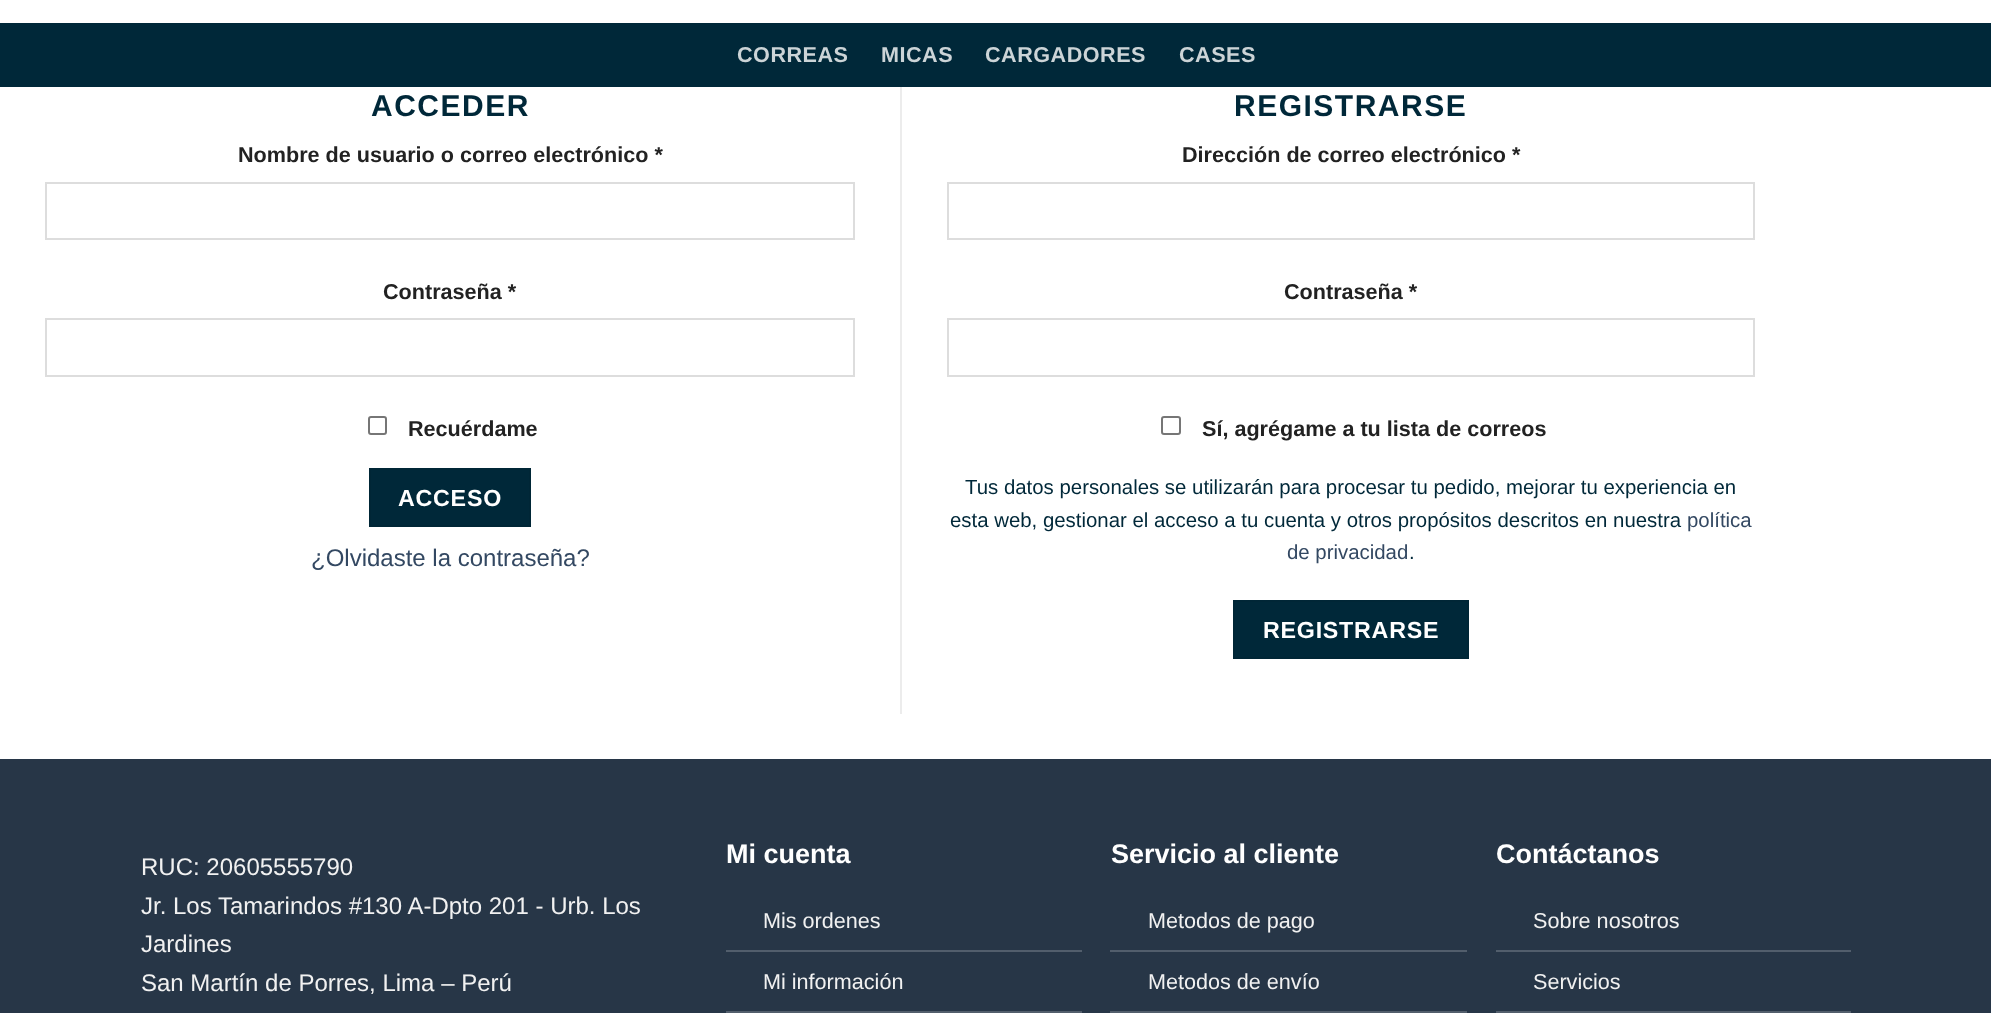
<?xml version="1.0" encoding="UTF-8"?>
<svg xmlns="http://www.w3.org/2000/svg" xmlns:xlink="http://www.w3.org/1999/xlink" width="1991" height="1013">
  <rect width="100%" height="100%" fill="#ffffff" />
  <rect y="23" width="1991" height="64" fill="#002839" />
  <rect x="46" y="183" width="808" height="56" fill="none" stroke="#dddddd" stroke-width="2" />
  <rect x="46" y="319" width="808" height="57" fill="none" stroke="#dddddd" stroke-width="2" />
  <rect x="369" y="417" width="17" height="17" rx="2" fill="none" stroke="#767676" stroke-width="2" />
  <rect x="370" y="469" width="160" height="57" fill="#002839" stroke="#002636" stroke-width="2" />
  <rect x="900" y="87" width="2" height="627" fill="#ececec" />
  <rect x="948" y="183" width="806" height="56" fill="none" stroke="#dddddd" stroke-width="2" />
  <rect x="948" y="319" width="806" height="57" fill="none" stroke="#dddddd" stroke-width="2" />
  <rect x="1162" y="417" width="18" height="17" rx="2" fill="none" stroke="#767676" stroke-width="2" />
  <rect x="1234" y="601" width="234" height="57" fill="#002839" stroke="#002636" stroke-width="2" />
  <rect y="759" width="1991" height="254" fill="#273647" />
  <rect x="726" y="950" width="356" height="2" fill="#525e6c" />
  <rect x="726" y="1011" width="356" height="2" fill="#525e6c" />
  <rect x="1110" y="950" width="357" height="2" fill="#525e6c" />
  <rect x="1110" y="1011" width="357" height="2" fill="#525e6c" />
  <rect x="1496" y="950" width="355" height="2" fill="#525e6c" />
  <rect x="1496" y="1011" width="355" height="2" fill="#525e6c" />
  <text x="737" y="62" style="font-family: Liberation Sans; font-size: 21.6px; font-weight: bold; letter-spacing: 0.5px; fill: #ccd4d7">CORREAS</text>
  <text x="881" y="62" style="font-family: Liberation Sans; font-size: 21.6px; font-weight: bold; letter-spacing: 0.5px; fill: #ccd4d7">MICAS</text>
  <text x="985" y="62" style="font-family: Liberation Sans; font-size: 21.6px; font-weight: bold; letter-spacing: 0.5px; fill: #ccd4d7">CARGADORES</text>
  <text x="1179" y="62" style="font-family: Liberation Sans; font-size: 21.6px; font-weight: bold; letter-spacing: 0.5px; fill: #ccd4d7">CASES</text>
  <text x="371" y="116" style="font-family: Liberation Sans; font-size: 30px; font-weight: bold; letter-spacing: 1.5px; fill: #002839">ACCEDER</text>
  <text x="238" y="162" style="font-family: Liberation Sans; font-size: 21.6px; font-weight: bold; fill: #222222">Nombre de usuario o correo electrónico *</text>
  <text x="383" y="299" style="font-family: Liberation Sans; font-size: 21.6px; font-weight: bold; fill: #222222">Contraseña *</text>
  <text x="408" y="436" style="font-family: Liberation Sans; font-size: 21.6px; font-weight: bold; fill: #222222">Recuérdame</text>
  <text x="398" y="506" style="font-family: Liberation Sans; font-size: 23.25px; font-weight: bold; letter-spacing: 0.75px; fill: #ffffff">ACCESO</text>
  <text x="311" y="566" style="font-family: Liberation Sans; font-size: 24px; fill: #334862">¿Olvidaste la contraseña?</text>
  <text x="1234" y="116" style="font-family: Liberation Sans; font-size: 30px; font-weight: bold; letter-spacing: 1.5px; fill: #002839">REGISTRARSE</text>
  <text x="1182" y="162" style="font-family: Liberation Sans; font-size: 21.6px; font-weight: bold; fill: #222222">Dirección de correo electrónico *</text>
  <text x="1284" y="299" style="font-family: Liberation Sans; font-size: 21.6px; font-weight: bold; fill: #222222">Contraseña *</text>
  <text x="1202" y="436" style="font-family: Liberation Sans; font-size: 21.6px; font-weight: bold; fill: #222222">Sí, agrégame a tu lista de correos</text>
  <text x="965" y="494" style="font-family: Liberation Sans; font-size: 20.4px; fill: #002839">Tus datos personales se utilizarán para procesar tu pedido, mejorar tu experiencia en</text>
  <text x="950" y="527" style="font-family: Liberation Sans; font-size: 20.4px; fill: #002839">esta web, gestionar el acceso a tu cuenta y otros propósitos descritos en nuestra</text>
  <text x="1687" y="527" style="font-family: Liberation Sans; font-size: 20.4px; fill: #334862">política</text>
  <text x="1287" y="559" style="font-family: Liberation Sans; font-size: 20.4px; fill: #334862">de privacidad</text>
  <text x="1409" y="559" style="font-family: Liberation Sans; font-size: 20.4px; fill: #002839">.</text>
  <text x="1263" y="638" style="font-family: Liberation Sans; font-size: 23.25px; font-weight: bold; letter-spacing: 0.75px; fill: #ffffff">REGISTRARSE</text>
  <text x="141" y="875" style="font-family: Liberation Sans; font-size: 24px; fill: #f1f1f1">RUC: 20605555790</text>
  <text x="141" y="914" style="font-family: Liberation Sans; font-size: 24px; fill: #f1f1f1">Jr. Los Tamarindos #130 A-Dpto 201 - Urb. Los</text>
  <text x="141" y="952" style="font-family: Liberation Sans; font-size: 24px; fill: #f1f1f1">Jardines</text>
  <text x="141" y="991" style="font-family: Liberation Sans; font-size: 24px; fill: #f1f1f1">San Martín de Porres, Lima – Perú</text>
  <text x="726" y="863" style="font-family: Liberation Sans; font-size: 27px; font-weight: bold; fill: #ffffff">Mi cuenta</text>
  <text x="763" y="928" style="font-family: Liberation Sans; font-size: 21.6px; fill: #f1f1f1">Mis ordenes</text>
  <text x="763" y="989" style="font-family: Liberation Sans; font-size: 21.6px; fill: #f1f1f1">Mi información</text>
  <text x="1111" y="863" style="font-family: Liberation Sans; font-size: 27px; font-weight: bold; fill: #ffffff">Servicio al cliente</text>
  <text x="1148" y="928" style="font-family: Liberation Sans; font-size: 21.6px; fill: #f1f1f1">Metodos de pago</text>
  <text x="1148" y="989" style="font-family: Liberation Sans; font-size: 21.6px; fill: #f1f1f1">Metodos de envío</text>
  <text x="1496" y="863" style="font-family: Liberation Sans; font-size: 27px; font-weight: bold; fill: #ffffff">Contáctanos</text>
  <text x="1533" y="928" style="font-family: Liberation Sans; font-size: 21.6px; fill: #f1f1f1">Sobre nosotros</text>
  <text x="1533" y="989" style="font-family: Liberation Sans; font-size: 21.6px; fill: #f1f1f1">Servicios</text>
</svg>
